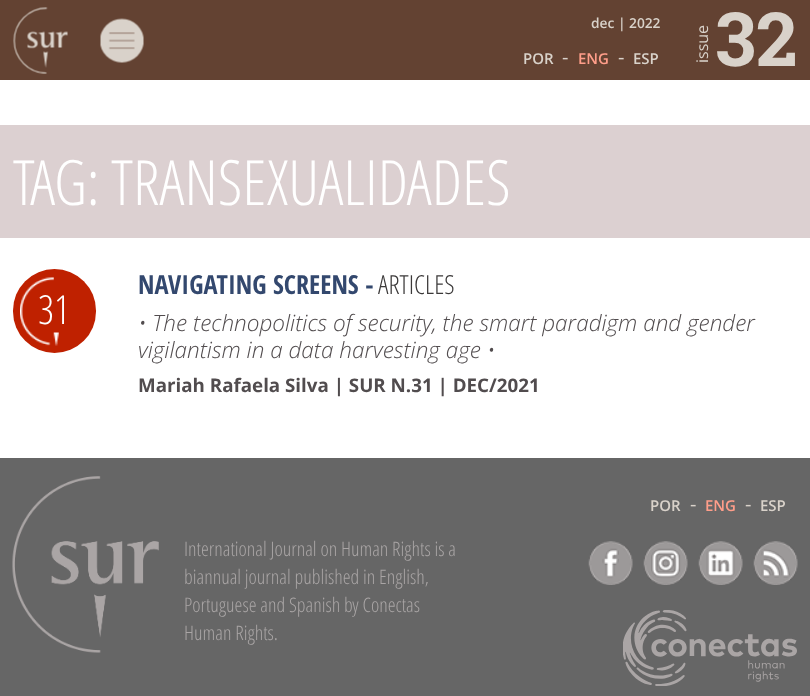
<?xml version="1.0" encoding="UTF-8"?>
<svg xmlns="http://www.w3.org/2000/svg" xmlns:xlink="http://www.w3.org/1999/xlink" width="810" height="696">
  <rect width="100%" height="100%" fill="#ffffff" />
  <rect width="810" height="80" fill="#634232" />
  <image x="13" y="7" width="55" height="67" xlink:href="image1.png" />
  <image x="100" y="18" width="44" height="45" xlink:href="image2.png" />
  <rect y="125" width="810" height="113" fill="#dcd0d1" />
  <rect x="13" y="269" width="83" height="84" rx="41.5" fill="#bf2100" />
  <image x="20" y="277" width="39" height="69" xlink:href="image3.png" />
  <rect y="458" width="810" height="238" fill="#666666" />
  <image x="12" y="476" width="147" height="177" xlink:href="image4.png" />
  <image x="588" y="541" width="45" height="44" xlink:href="image5.png" />
  <image x="643" y="541" width="45" height="44" xlink:href="image6.png" />
  <image x="698" y="541" width="45" height="44" xlink:href="image7.png" />
  <image x="753" y="541" width="45" height="44" xlink:href="image8.png" />
  <image x="623" y="610" width="174" height="76" xlink:href="image9.png" />
  <text x="591" y="28" style="font-family: Open Sans; font-size: 13.75px; font-weight: 600; fill: #d9d2ca">dec | 2022</text>
  <text x="708" y="63" transform="rotate(-90 708 63)" style="font-family: Open Sans; font-size: 16px; fill: #d9d2ca">issue</text>
  <text x="715" y="66" style="font-family: Roboto Slab; font-size: 75px; font-weight: bold; fill: #d9d2ca">32</text>
  <text x="523" y="64" style="font-family: Open Sans; font-size: 15px; font-weight: 600; fill: #d9d2ca">POR</text>
  <text x="562" y="64" style="font-family: Open Sans; font-size: 20px; fill: #d9d2ca">-</text>
  <text x="578" y="64" style="font-family: Open Sans; font-size: 15px; font-weight: 600; fill: #ff9e8a">ENG</text>
  <text x="618" y="64" style="font-family: Open Sans; font-size: 20px; fill: #d9d2ca">-</text>
  <text x="633" y="64" style="font-family: Open Sans; font-size: 15px; font-weight: 600; fill: #d9d2ca">ESP</text>
  <text x="13" y="205" style="font-family: Open Sans; font-size: 62.5px; font-weight: 300; fill: #ffffff">TAG: TRANSEXUALIDADES</text>
  <text x="38" y="324" style="font-family: Open Sans; font-size: 40px; font-weight: 300; fill: #ffffff">31</text>
  <text x="138" y="294" style="font-family: Open Sans Condensed; font-size: 26.25px; font-weight: bold; fill: #33486e">NAVIGATING SCREENS -</text>
  <text x="378" y="294" style="font-family: Open Sans; font-size: 26.25px; font-weight: 300; fill: #3b3939">ARTICLES</text>
  <text x="138" y="331" style="font-family: Open Sans; font-size: 22.5px; font-weight: 300; font-style: italic; fill: #514c4e">• The technopolitics of security, the smart paradigm and gender</text>
  <text x="138" y="358" style="font-family: Open Sans; font-size: 22.5px; font-weight: 300; font-style: italic; fill: #514c4e">vigilantism in a data harvesting age •</text>
  <text x="138" y="392" style="font-family: Open Sans; font-size: 18.75px; font-weight: bold; fill: #514c4e">Mariah Rafaela Silva | SUR N.31 | DEC/2021</text>
  <text x="650" y="511" style="font-family: Open Sans; font-size: 15px; font-weight: 600; fill: #d9d2ca">POR</text>
  <text x="690" y="511" style="font-family: Open Sans; font-size: 20px; fill: #d9d2ca">-</text>
  <text x="705" y="511" style="font-family: Open Sans; font-size: 15px; font-weight: 600; fill: #ff9e8a">ENG</text>
  <text x="745" y="511" style="font-family: Open Sans; font-size: 20px; fill: #d9d2ca">-</text>
  <text x="760" y="511" style="font-family: Open Sans; font-size: 15px; font-weight: 600; fill: #d9d2ca">ESP</text>
  <text x="184" y="556" style="font-family: Open Sans; font-size: 20px; font-weight: 300; fill: #a9a5a5">International Journal on Human Rights is a</text>
  <text x="184" y="584" style="font-family: Open Sans; font-size: 20px; font-weight: 300; fill: #a9a5a5">biannual journal published in English,</text>
  <text x="184" y="612" style="font-family: Open Sans; font-size: 20px; font-weight: 300; fill: #a9a5a5">Portuguese and Spanish by Conectas</text>
  <text x="184" y="640" style="font-family: Open Sans; font-size: 20px; font-weight: 300; fill: #a9a5a5">Human Rights.</text>
</svg>
